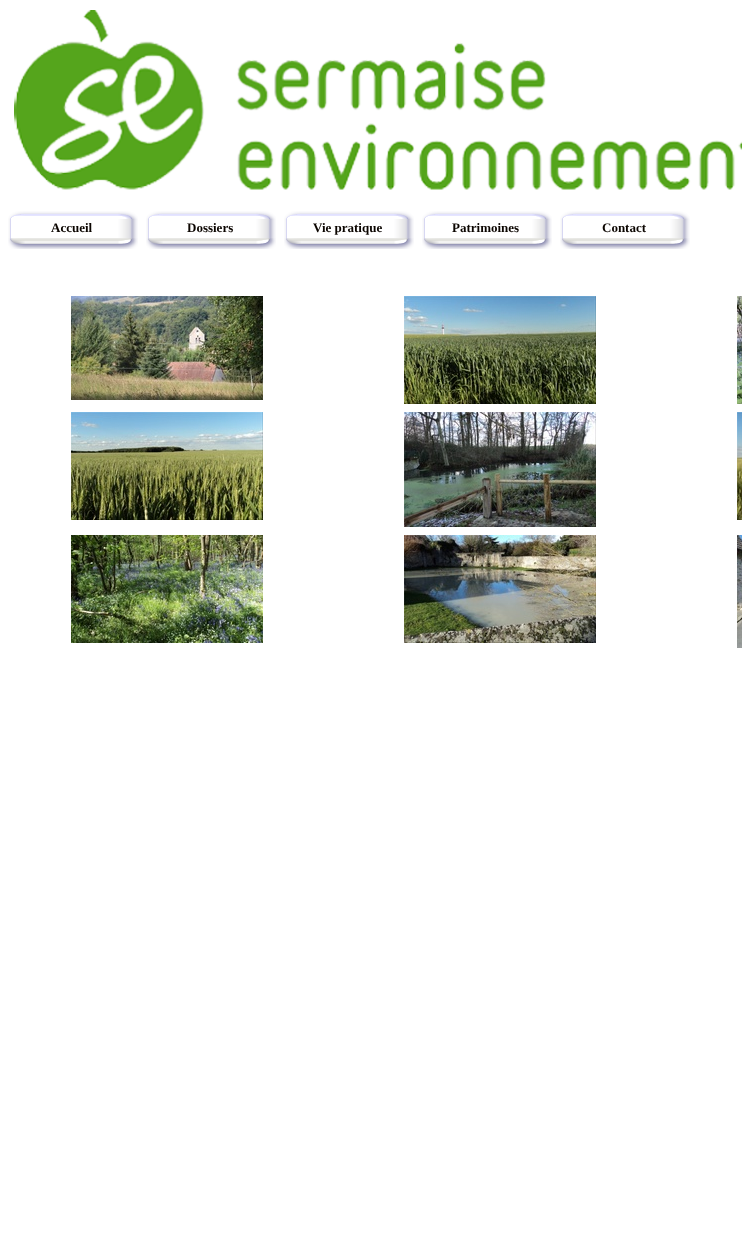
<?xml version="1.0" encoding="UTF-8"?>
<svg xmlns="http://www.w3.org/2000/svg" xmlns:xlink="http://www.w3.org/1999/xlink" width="742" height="1243">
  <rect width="100%" height="100%" fill="#ffffff" />
  <image x="14" y="10" width="728" height="180" xlink:href="image1.png" />
  <image x="8" y="211" width="130" height="38" xlink:href="image2.png" />
  <image x="10" y="214" width="123" height="32" xlink:href="image3.png" />
  <image x="146" y="211" width="130" height="38" xlink:href="image2.png" />
  <image x="148" y="214" width="123" height="32" xlink:href="image3.png" />
  <image x="284" y="211" width="130" height="38" xlink:href="image2.png" />
  <image x="286" y="214" width="123" height="32" xlink:href="image3.png" />
  <image x="422" y="211" width="130" height="38" xlink:href="image2.png" />
  <image x="424" y="214" width="123" height="32" xlink:href="image3.png" />
  <image x="560" y="211" width="130" height="38" xlink:href="image2.png" />
  <image x="562" y="214" width="123" height="32" xlink:href="image3.png" />
  <image x="71" y="296" width="192" height="104" xlink:href="image4.png" />
  <image x="404" y="296" width="192" height="108" xlink:href="image5.png" />
  <image x="737" y="296" width="5" height="108" xlink:href="image6.png" />
  <image x="71" y="412" width="192" height="108" xlink:href="image7.png" />
  <image x="404" y="412" width="192" height="115" xlink:href="image8.png" />
  <image x="737" y="412" width="5" height="108" xlink:href="image9.png" />
  <image x="71" y="535" width="192" height="108" xlink:href="image10.png" />
  <image x="404" y="535" width="192" height="108" xlink:href="image11.png" />
  <image x="737" y="535" width="5" height="113" xlink:href="image12.png" />
  <text x="51" y="232" style="font-family: Liberation Serif; font-size: 13px; font-weight: bold; fill: #0b0500">Accueil</text>
  <text x="187" y="232" style="font-family: Liberation Serif; font-size: 13px; font-weight: bold; fill: #0b0500">Dossiers</text>
  <text x="313" y="232" style="font-family: Liberation Serif; font-size: 13px; font-weight: bold; fill: #0b0500">Vie pratique</text>
  <text x="452" y="232" style="font-family: Liberation Serif; font-size: 13px; font-weight: bold; fill: #0b0500">Patrimoines</text>
  <text x="602" y="232" style="font-family: Liberation Serif; font-size: 13px; font-weight: bold; fill: #0b0500">Contact</text>
</svg>
